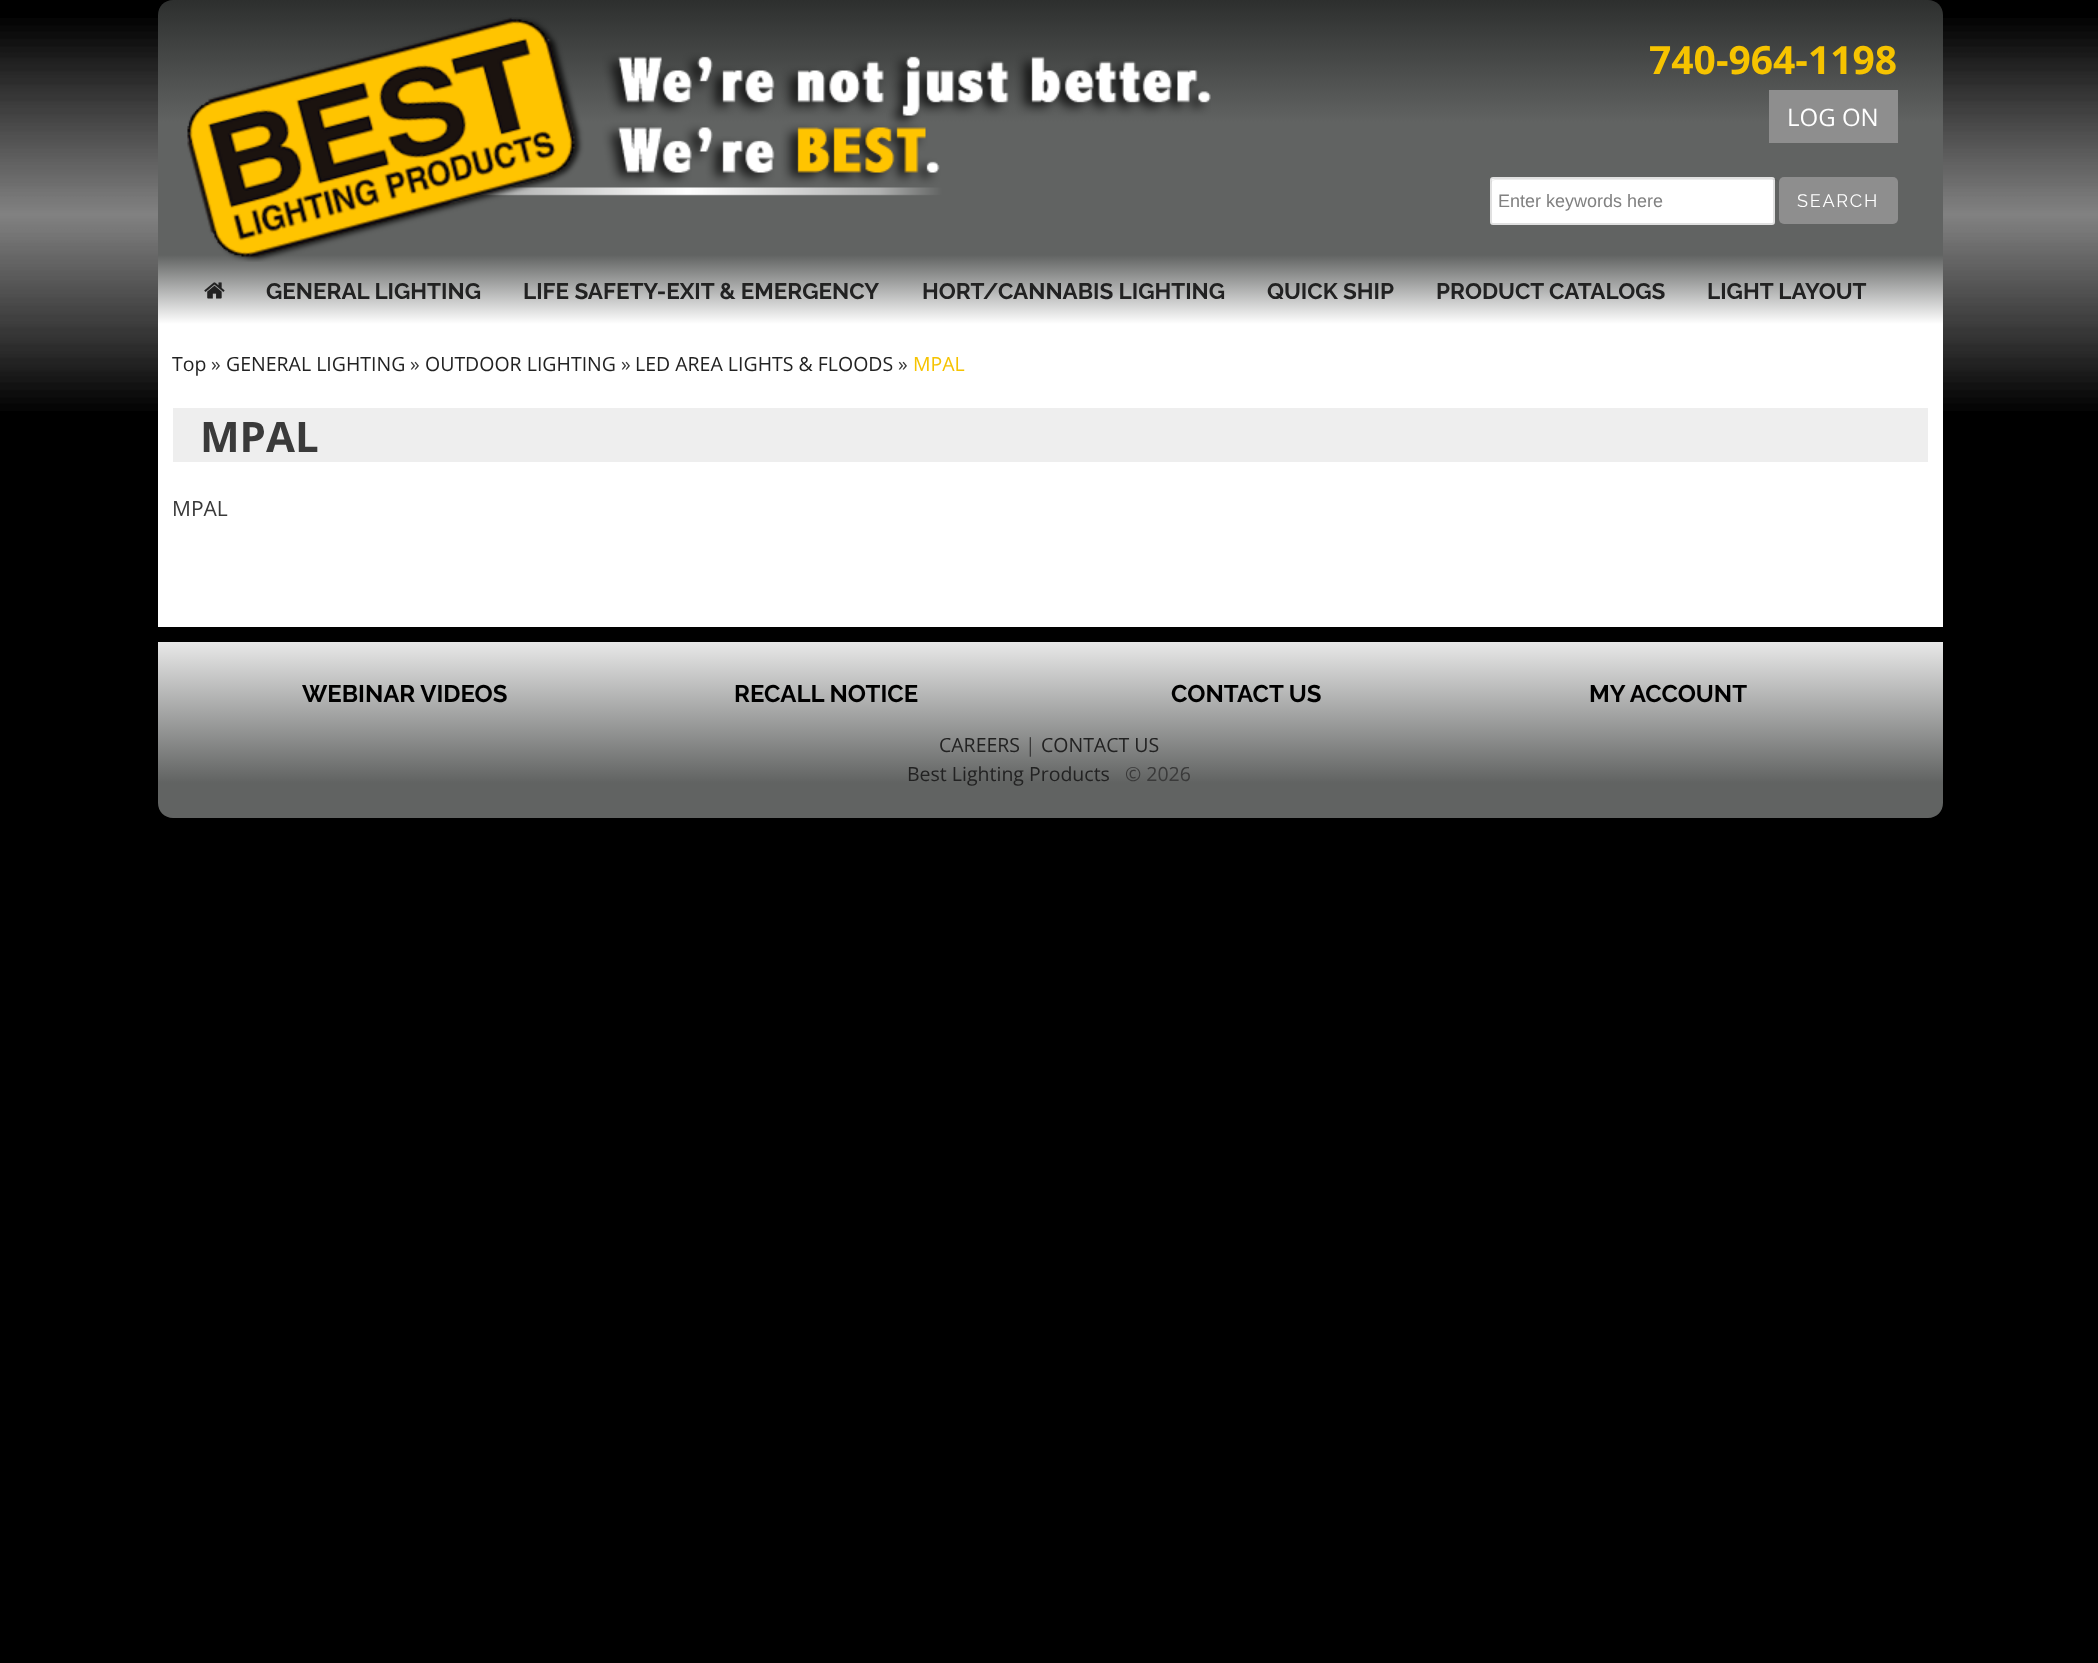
<?xml version="1.0" encoding="UTF-8"?>
<svg xmlns="http://www.w3.org/2000/svg" xmlns:xlink="http://www.w3.org/1999/xlink" width="2098" height="1663">
  <defs>
    <linearGradient id="g1" gradientUnits="userSpaceOnUse" x1="1050" y1="0" x2="1050" y2="255"><stop offset="0" stop-color="#2d2f2e" /><stop offset="0.48" stop-color="#616362" /></linearGradient>
    <linearGradient id="g2" gradientUnits="userSpaceOnUse" x1="1050" y1="255" x2="1050" y2="324"><stop offset="0" stop-color="#616362" /><stop offset="1" stop-color="#ffffff" /></linearGradient>
    <linearGradient id="g3" gradientUnits="userSpaceOnUse" x1="1050" y1="642" x2="1050" y2="818"><stop offset="0" stop-color="#e8e8e8" /><stop offset="0.8" stop-color="#616362" /></linearGradient>
  </defs>
  <rect width="100%" height="100%" fill="#000000" />
  <image x="0" y="18" width="2098" height="393" xlink:href="image1.png" />
  <path d="M 173 0 h 1755 c 8.5 0 15 6.5 15 15 v 240 h -1785 v -240 c 0 -8.5 6.5 -15 15 -15 z" fill="url(#g1)" />
  <rect x="158" y="255" width="1785" height="69" fill="url(#g2)" />
  <image x="187" y="17" width="1024" height="245" xlink:href="image2.png" />
  <rect x="1491" y="178" width="283" height="46" rx="2" fill="#ffffff" stroke="#e0e0e0" stroke-width="2" />
  <path d="M 1496 180 h 278 c 3 0 5 2 5 4 c 0 -3 -2 -5 -5 -5 h -278 c -3 0 -5 2 -5 5 c 0 -2 2 -4 5 -4 z" fill="#000000" fill-opacity="0.07" />
  <rect x="1779" y="177" width="119" height="47" rx="5" fill="#8e8e8e" />
  <rect x="1769" y="90" width="129" height="53" fill="#8e8e8e" />
  <image x="204" y="282" width="21" height="17" xlink:href="image3.png" />
  <rect x="158" y="324" width="1785" height="303" fill="#ffffff" />
  <rect x="173" y="408" width="1755" height="54" fill="#eeeeee" />
  <path d="M 158 642 h 1785 v 161 c 0 8.5 -6.5 15 -15 15 h -1755 c -8.5 0 -15 -6.5 -15 -15 z" fill="url(#g3)" />
  <text x="1649" y="74" style="font-family: Open Sans; font-size: 39px; font-weight: bold; fill: #f6c300">740-964-1198</text>
  <text x="1498" y="207" style="font-family: Liberation Sans; font-size: 18px; fill: #818181">Enter keywords here</text>
  <text x="1797" y="207" style="font-family: Raleway; font-size: 18px; letter-spacing: 1.75px; fill: #ffffff">SEARCH</text>
  <text x="1787" y="126" style="font-family: Open Sans; font-size: 24px; fill: #ffffff">LOG ON</text>
  <text x="266" y="299" style="font-family: Raleway; font-size: 22.5px; font-weight: bold; fill: #222222">GENERAL LIGHTING</text>
  <text x="523" y="299" style="font-family: Raleway; font-size: 22.5px; font-weight: bold; fill: #222222">LIFE SAFETY-EXIT &amp; EMERGENCY</text>
  <text x="922" y="299" style="font-family: Raleway; font-size: 22.5px; font-weight: bold; fill: #222222">HORT/CANNABIS LIGHTING</text>
  <text x="1267" y="299" style="font-family: Raleway; font-size: 22.5px; font-weight: bold; fill: #222222">QUICK SHIP</text>
  <text x="1436" y="299" style="font-family: Raleway; font-size: 22.5px; font-weight: bold; fill: #222222">PRODUCT CATALOGS</text>
  <text x="1707" y="299" style="font-family: Raleway; font-size: 22.5px; font-weight: bold; fill: #222222">LIGHT LAYOUT</text>
  <text x="172" y="371" style="font-family: Open Sans; font-size: 19.5px; fill: #222222">Top</text>
  <text x="211" y="371" style="font-family: Open Sans; font-size: 19.5px; fill: #3a3a3a">»</text>
  <text x="226" y="371" style="font-family: Open Sans; font-size: 19.5px; fill: #222222">GENERAL LIGHTING</text>
  <text x="410" y="371" style="font-family: Open Sans; font-size: 19.5px; fill: #3a3a3a">»</text>
  <text x="425" y="371" style="font-family: Open Sans; font-size: 19.5px; fill: #222222">OUTDOOR LIGHTING</text>
  <text x="621" y="371" style="font-family: Open Sans; font-size: 19.5px; fill: #3a3a3a">»</text>
  <text x="635" y="371" style="font-family: Open Sans; font-size: 19.5px; fill: #222222">LED AREA LIGHTS &amp; FLOODS</text>
  <text x="898" y="371" style="font-family: Open Sans; font-size: 19.5px; fill: #3a3a3a">»</text>
  <text x="913" y="371" style="font-family: Open Sans; font-size: 19.5px; fill: #f6c300">MPAL</text>
  <text x="200" y="452" style="font-family: Open Sans; font-size: 42px; font-weight: bold; fill: #3a3a3a">MPAL</text>
  <text x="172" y="516" style="font-family: Open Sans; font-size: 21px; fill: #3a3a3a">MPAL</text>
  <text x="302" y="702" style="font-family: Raleway; font-size: 24px; font-weight: bold; fill: #000000">WEBINAR VIDEOS</text>
  <text x="734" y="702" style="font-family: Raleway; font-size: 24px; font-weight: bold; fill: #000000">RECALL NOTICE</text>
  <text x="1171" y="702" style="font-family: Raleway; font-size: 24px; font-weight: bold; fill: #000000">CONTACT US</text>
  <text x="1589" y="702" style="font-family: Raleway; font-size: 24px; font-weight: bold; fill: #000000">MY ACCOUNT</text>
  <text x="939" y="752" style="font-family: Open Sans; font-size: 19.5px; fill: #222222">CAREERS</text>
  <text x="1025" y="752" style="font-family: Open Sans; font-size: 19.5px; fill: #3a3a3a">|</text>
  <text x="1041" y="752" style="font-family: Open Sans; font-size: 19.5px; fill: #222222">CONTACT US</text>
  <text x="907" y="781" style="font-family: Open Sans; font-size: 19.5px; fill: #222222">Best Lighting Products</text>
  <text x="1125" y="781" style="font-family: Open Sans; font-size: 19.5px; fill: #3a3a3a">© 2026</text>
</svg>
